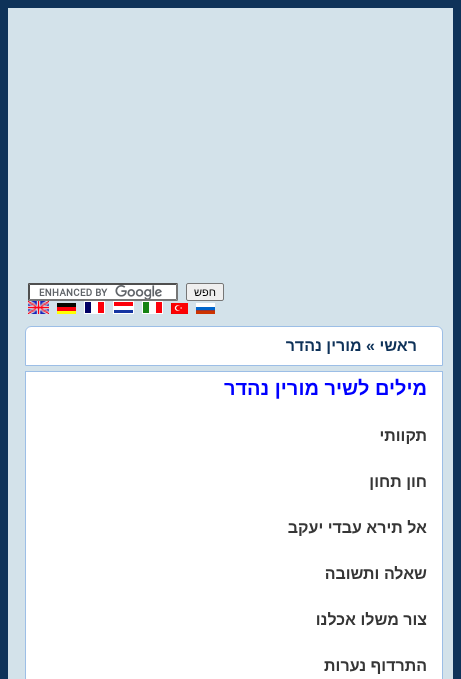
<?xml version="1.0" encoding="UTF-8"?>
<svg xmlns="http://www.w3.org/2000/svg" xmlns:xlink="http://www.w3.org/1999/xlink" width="461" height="679">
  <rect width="100%" height="100%" fill="#0e3259" />
  <rect x="8" y="8" width="445" height="671" fill="#d3e2ea" />
  <rect x="186.5" y="283.5" width="37" height="17" rx="1.5" fill="#efefef" stroke="#767676" />
  <rect x="28" y="283" width="150" height="18" fill="#ffffff" />
  <image x="39" y="285" width="123" height="14" xlink:href="image1.png" />
  <path d="M 28 283 h 150 l -2 2 h -146 z" fill="#4f4f4f" />
  <path d="M 178 283 v 18 l -2 -2 v -14 z" fill="#767676" />
  <path d="M 178 301 h -150 l 2 -2 h 146 z" fill="#767676" />
  <path d="M 28 301 v -18 l 2 2 v 14 z" fill="#4f4f4f" />
  <image x="196" y="303" width="19" height="11" xlink:href="image2.png" />
  <image x="171" y="303" width="17" height="11" xlink:href="image3.png" />
  <image x="142" y="301" width="21" height="13" xlink:href="image4.png" />
  <image x="113" y="301" width="21" height="13" xlink:href="image5.png" />
  <image x="84" y="301" width="21" height="13" xlink:href="image6.png" />
  <image x="57" y="303" width="19" height="11" xlink:href="image7.png" />
  <image x="28" y="301" width="21" height="13" xlink:href="image8.png" />
  <path d="M 31 326.5 h 406 c 3 0 5.5 2.5 5.5 5.5 v 33.5 h -417 v -33.5 c 0 -3 2.5 -5.5 5.5 -5.5 z" fill="#ffffff" stroke="#9cbee6" />
  <rect x="25.5" y="371.5" width="417" height="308" fill="#ffffff" stroke="#9cbee6" />
  <text x="216" y="296" style="font-family: Liberation Sans; font-size: 11px; direction: rtl; fill: #000000">חפש</text>
  <text x="417" y="351" style="font-family: Liberation Sans; font-size: 16px; font-weight: bold; direction: rtl; fill: #0e3259">ראשי</text>
  <text x="375" y="351" style="font-family: Liberation Sans; font-size: 16px; font-weight: bold; direction: rtl; fill: #0e3259">» מורין נהדר</text>
  <text x="427" y="395" style="font-family: Liberation Sans; font-size: 20px; font-weight: bold; direction: rtl; fill: #0000ff">מילים לשיר מורין נהדר</text>
  <text x="427" y="441" style="font-family: Liberation Sans; font-size: 16px; font-weight: bold; direction: rtl; fill: #363636">תקוותי</text>
  <text x="427" y="487" style="font-family: Liberation Sans; font-size: 16px; font-weight: bold; direction: rtl; fill: #363636">חון תחון</text>
  <text x="427" y="533" style="font-family: Liberation Sans; font-size: 16px; font-weight: bold; direction: rtl; fill: #363636">אל תירא עבדי יעקב</text>
  <text x="427" y="579" style="font-family: Liberation Sans; font-size: 16px; font-weight: bold; direction: rtl; fill: #363636">שאלה ותשובה</text>
  <text x="427" y="625" style="font-family: Liberation Sans; font-size: 16px; font-weight: bold; direction: rtl; fill: #363636">צור משלו אכלנו</text>
  <text x="427" y="671" style="font-family: Liberation Sans; font-size: 16px; font-weight: bold; direction: rtl; fill: #363636">התרדוף נערות</text>
</svg>
